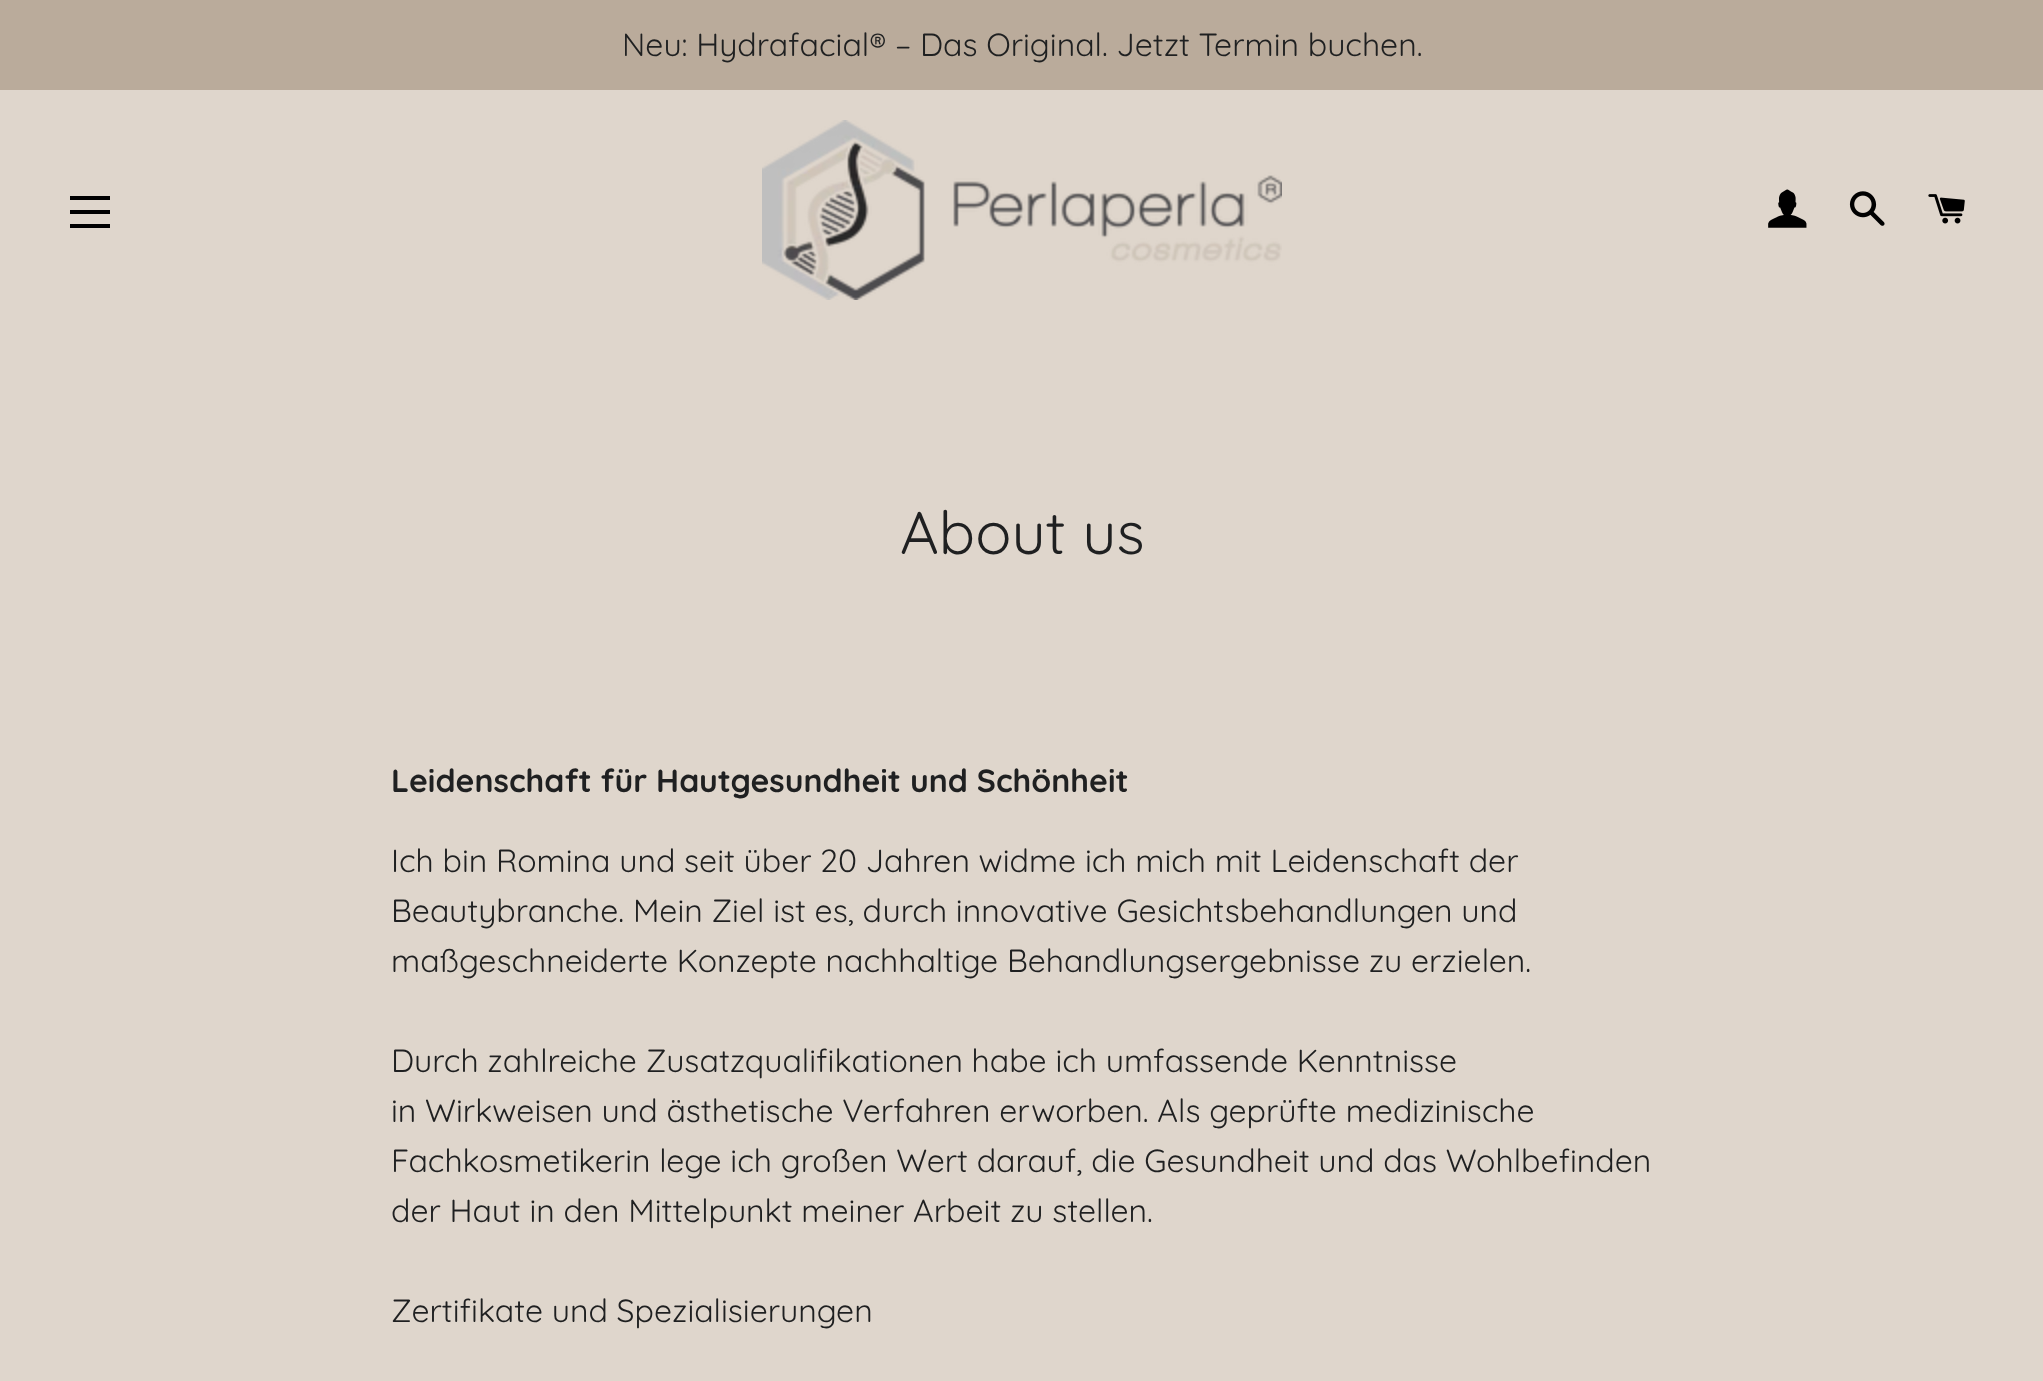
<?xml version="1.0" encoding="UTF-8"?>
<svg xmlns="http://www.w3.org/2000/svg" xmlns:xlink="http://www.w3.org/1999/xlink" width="2043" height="1381">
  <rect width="100%" height="100%" fill="#dfd6cc" />
  <rect width="2043" height="90" fill="#baab9b" />
  <rect x="70" y="196" width="40" height="4" fill="#000000" />
  <rect x="70" y="210" width="40" height="4" fill="#000000" />
  <rect x="70" y="224" width="40" height="4" fill="#000000" />
  <image x="762" y="120" width="520" height="180" xlink:href="image1.png" />
  <image x="1768" y="189" width="39" height="39" xlink:href="image2.png" />
  <image x="1849" y="191" width="36" height="35" xlink:href="image3.png" />
  <image x="1928" y="194" width="37" height="30" xlink:href="image4.png" />
  <text x="622" y="56" style="font-family: Quicksand; font-size: 32px; fill: #1f2021">Neu: Hydrafacial® – Das Original. Jetzt Termin buchen.</text>
  <text x="900" y="554" style="font-family: Quicksand; font-size: 60px; fill: #1f2021">About us</text>
  <text x="391" y="792" style="font-family: Quicksand; font-size: 32px; font-weight: bold; fill: #1f2021">Leidenschaft für Hautgesundheit und Schönheit</text>
  <text x="391" y="872" style="font-family: Quicksand; font-size: 32px; fill: #1f2021">Ich bin Romina und seit über 20 Jahren widme ich mich mit Leidenschaft der</text>
  <text x="391" y="922" style="font-family: Quicksand; font-size: 32px; fill: #1f2021">Beautybranche. Mein Ziel ist es, durch innovative Gesichtsbehandlungen und</text>
  <text x="391" y="972" style="font-family: Quicksand; font-size: 32px; fill: #1f2021">maßgeschneiderte Konzepte nachhaltige Behandlungsergebnisse zu erzielen.</text>
  <text x="391" y="1072" style="font-family: Quicksand; font-size: 32px; fill: #1f2021">Durch zahlreiche Zusatzqualifikationen habe ich umfassende Kenntnisse</text>
  <text x="391" y="1122" style="font-family: Quicksand; font-size: 32px; fill: #1f2021">in Wirkweisen und ästhetische Verfahren erworben. Als geprüfte medizinische</text>
  <text x="391" y="1172" style="font-family: Quicksand; font-size: 32px; fill: #1f2021">Fachkosmetikerin lege ich großen Wert darauf, die Gesundheit und das Wohlbefinden</text>
  <text x="391" y="1222" style="font-family: Quicksand; font-size: 32px; fill: #1f2021">der Haut in den Mittelpunkt meiner Arbeit zu stellen.</text>
  <text x="391" y="1322" style="font-family: Quicksand; font-size: 32px; fill: #1f2021">Zertifikate und Spezialisierungen</text>
</svg>
